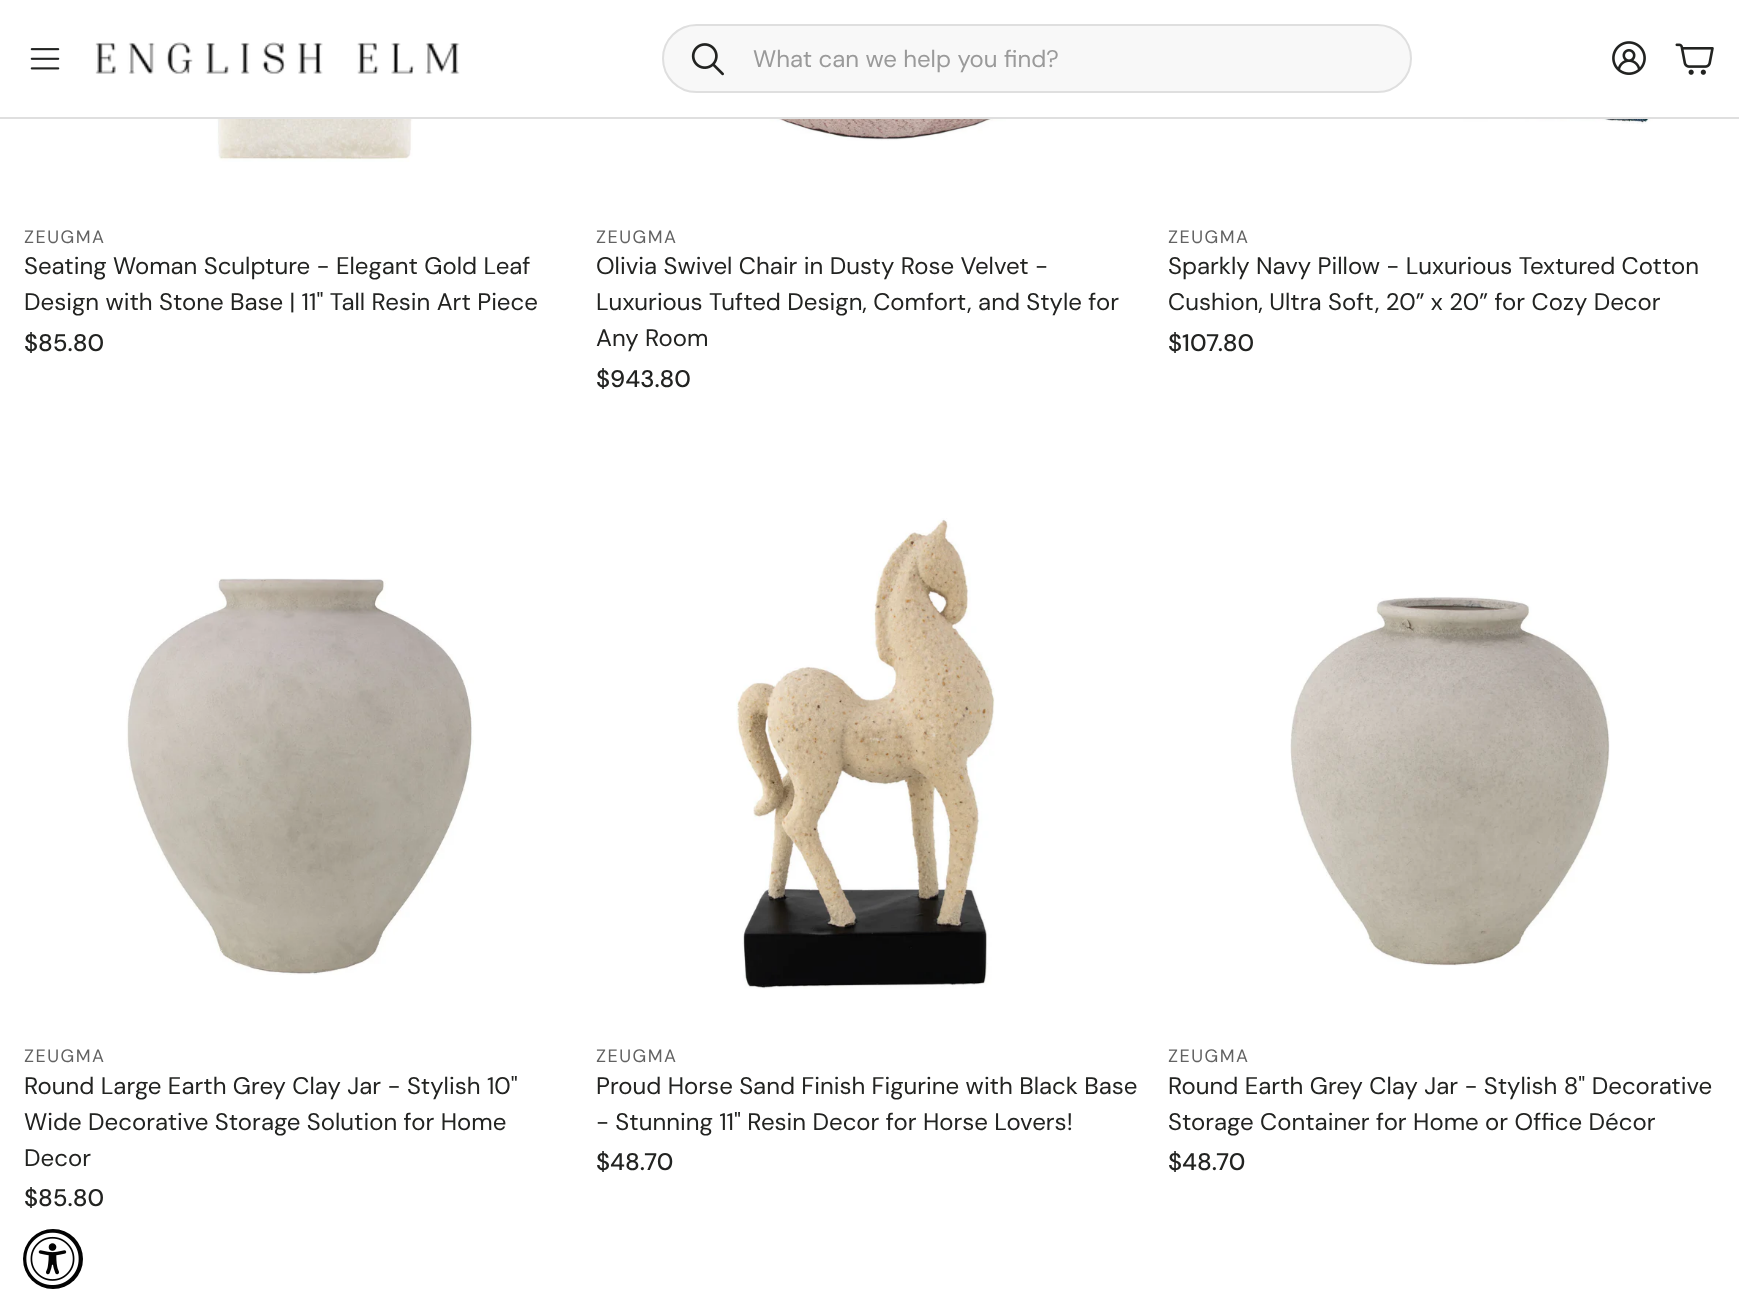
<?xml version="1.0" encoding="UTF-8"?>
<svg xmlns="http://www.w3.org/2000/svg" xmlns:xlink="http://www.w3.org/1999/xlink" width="1739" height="1311">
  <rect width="100%" height="100%" fill="#ffffff" />
  <rect y="117" width="1739" height="2" fill="#dfdfdf" />
  <image x="30" y="48" width="30" height="22" xlink:href="image1.png" />
  <image x="95" y="42" width="365" height="32" xlink:href="image2.png" />
  <rect x="663" y="25" width="748" height="67" rx="33.5" fill="#f8f8f8" stroke="#dfdfdf" stroke-width="2" />
  <image x="691" y="43" width="33" height="33" xlink:href="image3.png" />
  <image x="1612" y="41" width="34" height="34" xlink:href="image4.png" />
  <image x="1675" y="43" width="39" height="32" xlink:href="image5.png" />
  <image x="216" y="119" width="197" height="43" xlink:href="image6.png" />
  <image x="697" y="119" width="375" height="22" xlink:href="image7.png" />
  <image x="1246" y="119" width="407" height="5" xlink:href="image8.png" />
  <image x="126" y="578" width="348" height="397" xlink:href="image9.png" />
  <image x="736" y="518" width="259" height="471" xlink:href="image10.png" />
  <image x="1290" y="596" width="320" height="370" xlink:href="image11.png" />
  <circle cx="53" cy="1259" r="30" fill="#030303" />
  <image x="26" y="1232" width="53" height="53" xlink:href="image12.png" />
  <text x="753" y="67" style="font-family: 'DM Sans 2'; font-size: 24px; fill: #9a9a9a">What can we help you find?</text>
  <text x="24" y="243" style="font-family: DM Sans; font-size: 18px; letter-spacing: 1.5px; fill: #626262">ZEUGMA</text>
  <text x="24" y="274" style="font-family: 'DM Sans 2'; font-size: 24px; fill: #222321">Seating Woman Sculpture - Elegant Gold Leaf</text>
  <text x="24" y="310" style="font-family: 'DM Sans 2'; font-size: 24px; fill: #222321">Design with Stone Base | 11" Tall Resin Art Piece</text>
  <text x="24" y="351" style="font-family: DM Sans; font-size: 24px; font-weight: 500; fill: #222321">$85.80</text>
  <text x="596" y="243" style="font-family: DM Sans; font-size: 18px; letter-spacing: 1.5px; fill: #626262">ZEUGMA</text>
  <text x="596" y="274" style="font-family: 'DM Sans 2'; font-size: 24px; fill: #222321">Olivia Swivel Chair in Dusty Rose Velvet -</text>
  <text x="596" y="310" style="font-family: 'DM Sans 2'; font-size: 24px; fill: #222321">Luxurious Tufted Design, Comfort, and Style for</text>
  <text x="596" y="346" style="font-family: 'DM Sans 2'; font-size: 24px; fill: #222321">Any Room</text>
  <text x="596" y="387" style="font-family: DM Sans; font-size: 24px; font-weight: 500; fill: #222321">$943.80</text>
  <text x="1168" y="243" style="font-family: DM Sans; font-size: 18px; letter-spacing: 1.5px; fill: #626262">ZEUGMA</text>
  <text x="1168" y="274" style="font-family: 'DM Sans 2'; font-size: 24px; fill: #222321">Sparkly Navy Pillow - Luxurious Textured Cotton</text>
  <text x="1168" y="310" style="font-family: 'DM Sans 2'; font-size: 24px; fill: #222321">Cushion, Ultra Soft, 20” x 20” for Cozy Decor</text>
  <text x="1168" y="351" style="font-family: DM Sans; font-size: 24px; font-weight: 500; fill: #222321">$107.80</text>
  <text x="24" y="1062" style="font-family: DM Sans; font-size: 18px; letter-spacing: 1.5px; fill: #626262">ZEUGMA</text>
  <text x="24" y="1094" style="font-family: 'DM Sans 2'; font-size: 24px; fill: #222321">Round Large Earth Grey Clay Jar - Stylish 10"</text>
  <text x="24" y="1130" style="font-family: 'DM Sans 2'; font-size: 24px; fill: #222321">Wide Decorative Storage Solution for Home</text>
  <text x="24" y="1166" style="font-family: 'DM Sans 2'; font-size: 24px; fill: #222321">Decor</text>
  <text x="24" y="1206" style="font-family: DM Sans; font-size: 24px; font-weight: 500; fill: #222321">$85.80</text>
  <text x="596" y="1062" style="font-family: DM Sans; font-size: 18px; letter-spacing: 1.5px; fill: #626262">ZEUGMA</text>
  <text x="596" y="1094" style="font-family: 'DM Sans 2'; font-size: 24px; fill: #222321">Proud Horse Sand Finish Figurine with Black Base</text>
  <text x="596" y="1130" style="font-family: 'DM Sans 2'; font-size: 24px; fill: #222321">- Stunning 11" Resin Decor for Horse Lovers!</text>
  <text x="596" y="1170" style="font-family: DM Sans; font-size: 24px; font-weight: 500; fill: #222321">$48.70</text>
  <text x="1168" y="1062" style="font-family: DM Sans; font-size: 18px; letter-spacing: 1.5px; fill: #626262">ZEUGMA</text>
  <text x="1168" y="1094" style="font-family: 'DM Sans 2'; font-size: 24px; fill: #222321">Round Earth Grey Clay Jar - Stylish 8" Decorative</text>
  <text x="1168" y="1130" style="font-family: 'DM Sans 2'; font-size: 24px; fill: #222321">Storage Container for Home or Office Décor</text>
  <text x="1168" y="1170" style="font-family: DM Sans; font-size: 24px; font-weight: 500; fill: #222321">$48.70</text>
</svg>
